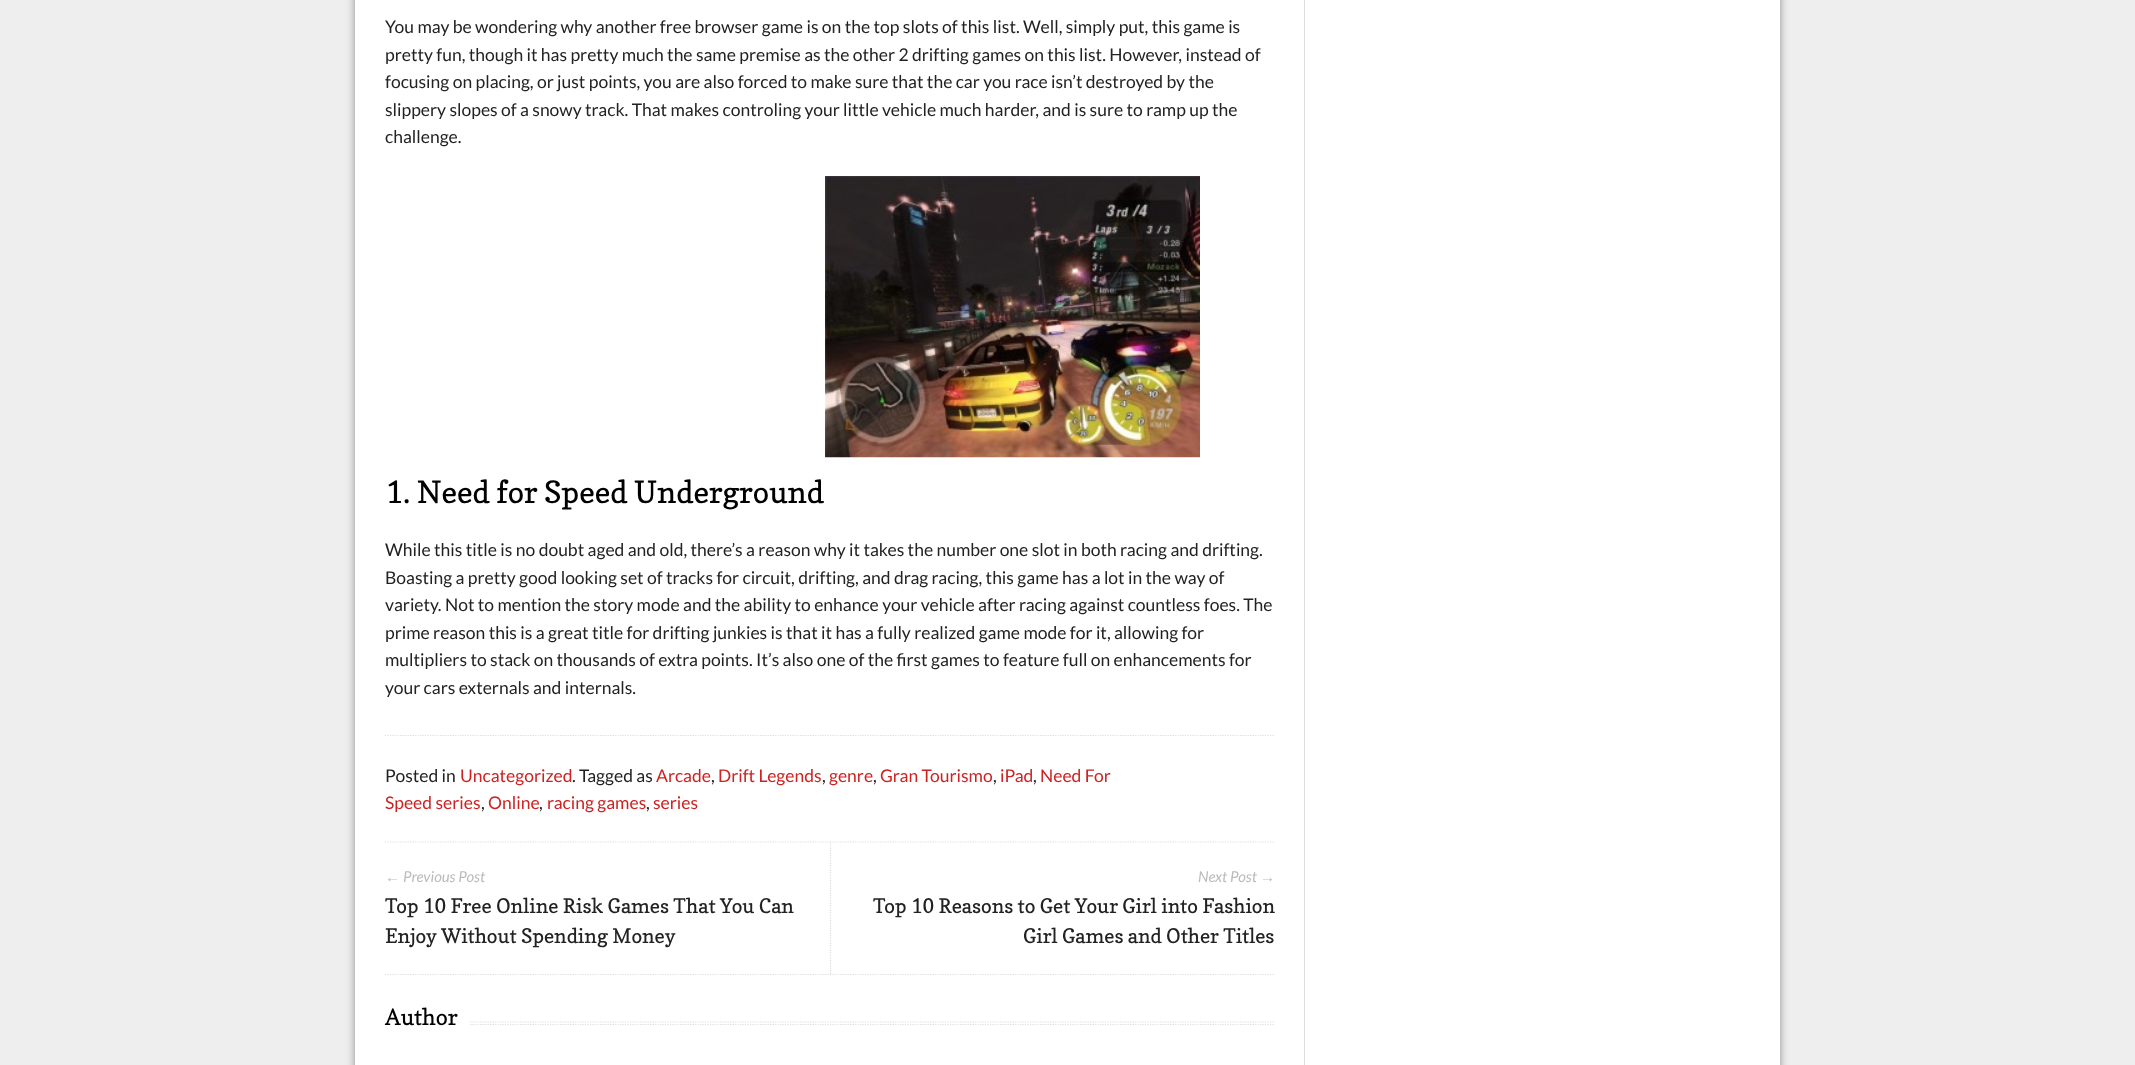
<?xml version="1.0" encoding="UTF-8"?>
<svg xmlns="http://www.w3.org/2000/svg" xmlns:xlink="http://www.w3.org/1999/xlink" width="2135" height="1065">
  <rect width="100%" height="100%" fill="#eeeeee" />
  <rect x="355" y="-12" width="1425" height="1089" fill="#000000" fill-opacity="0.4" filter="blur(4px)" />
  <rect x="355" width="1425" height="1065" fill="#ffffff" />
  <image x="825" y="176" width="375" height="282" xlink:href="image1.png" />
  <path d="M 385 735.5 h 890" fill="none" stroke="#dddddd" stroke-width="1.2" stroke-dasharray="1.25 1.25" />
  <path d="M 385 842 h 890" fill="none" stroke="#dddddd" stroke-width="1.2" stroke-dasharray="1.25 1.25" />
  <path d="M 385 974.5 h 890" fill="none" stroke="#dddddd" stroke-width="1.2" stroke-dasharray="1.25 1.25" />
  <path d="M 830.5 842.5 v 131.5" fill="none" stroke="#dddddd" stroke-width="1.2" stroke-dasharray="1.25 1.25" />
  <path d="M 385 1022 h 890" fill="none" stroke="#dddddd" stroke-width="1.2" stroke-dasharray="1.25 1.25" />
  <path d="M 385 1024.5 h 890" fill="none" stroke="#dddddd" stroke-width="1.2" stroke-dasharray="1.25 1.25" />
  <rect x="385" y="1021" width="84" height="5" fill="#ffffff" />
  <rect x="1304" width="1" height="1065" fill="#dddddd" />
  <text x="385" y="33" style="font-family: Lato; font-size: 17.5px; fill: #222222">You may be wondering why another free browser game is on the top slots of this list. Well, simply put, this game is</text>
  <text x="385" y="61" style="font-family: Lato; font-size: 17.5px; fill: #222222">pretty fun, though it has pretty much the same premise as the other 2 drifting games on this list. However, instead of</text>
  <text x="385" y="88" style="font-family: Lato; font-size: 17.5px; fill: #222222">focusing on placing, or just points, you are also forced to make sure that the car you race isn’t destroyed by the</text>
  <text x="385" y="116" style="font-family: Lato; font-size: 17.5px; fill: #222222">slippery slopes of a snowy track. That makes controling your little vehicle much harder, and is sure to ramp up the</text>
  <text x="385" y="143" style="font-family: Lato; font-size: 17.5px; fill: #222222">challenge.</text>
  <text x="385" y="503" style="font-family: Copse; font-size: 30.6px; fill: #000000">1. Need for Speed Underground</text>
  <text x="385" y="556" style="font-family: Lato; font-size: 17.5px; fill: #222222">While this title is no doubt aged and old, there’s a reason why it takes the number one slot in both racing and drifting.</text>
  <text x="385" y="584" style="font-family: Lato; font-size: 17.5px; fill: #222222">Boasting a pretty good looking set of tracks for circuit, drifting, and drag racing, this game has a lot in the way of</text>
  <text x="385" y="611" style="font-family: Lato; font-size: 17.5px; fill: #222222">variety. Not to mention the story mode and the ability to enhance your vehicle after racing against countless foes. The</text>
  <text x="385" y="639" style="font-family: Lato; font-size: 17.5px; fill: #222222">prime reason this is a great title for drifting junkies is that it has a fully realized game mode for it, allowing for</text>
  <text x="385" y="666" style="font-family: Lato; font-size: 17.5px; fill: #222222">multipliers to stack on thousands of extra points. It’s also one of the first games to feature full on enhancements for</text>
  <text x="385" y="694" style="font-family: Lato; font-size: 17.5px; fill: #222222">your cars externals and internals.</text>
  <text x="385" y="782" style="font-family: Lato; font-size: 17.5px; fill: #222222">Posted in</text>
  <text x="460" y="782" style="font-family: Lato; font-size: 17.5px; fill: #cc2222">Uncategorized</text>
  <text x="572" y="782" style="font-family: Lato; font-size: 17.5px; fill: #222222">. Tagged as</text>
  <text x="656" y="782" style="font-family: Lato; font-size: 17.5px; fill: #cc2222">Arcade</text>
  <text x="711" y="782" style="font-family: Lato; font-size: 17.5px; fill: #222222">,</text>
  <text x="718" y="782" style="font-family: Lato; font-size: 17.5px; fill: #cc2222">Drift Legends</text>
  <text x="822" y="782" style="font-family: Lato; font-size: 17.5px; fill: #222222">,</text>
  <text x="829" y="782" style="font-family: Lato; font-size: 17.5px; fill: #cc2222">genre</text>
  <text x="873" y="782" style="font-family: Lato; font-size: 17.5px; fill: #222222">,</text>
  <text x="880" y="782" style="font-family: Lato; font-size: 17.5px; fill: #cc2222">Gran Tourismo</text>
  <text x="993" y="782" style="font-family: Lato; font-size: 17.5px; fill: #222222">,</text>
  <text x="1000" y="782" style="font-family: Lato; font-size: 17.5px; fill: #cc2222">iPad</text>
  <text x="1033" y="782" style="font-family: Lato; font-size: 17.5px; fill: #222222">,</text>
  <text x="1040" y="782" style="font-family: Lato; font-size: 17.5px; fill: #cc2222">Need For</text>
  <text x="385" y="809" style="font-family: Lato; font-size: 17.5px; fill: #cc2222">Speed series</text>
  <text x="481" y="809" style="font-family: Lato; font-size: 17.5px; fill: #222222">,</text>
  <text x="488" y="809" style="font-family: Lato; font-size: 17.5px; fill: #cc2222">Online</text>
  <text x="539" y="809" style="font-family: Lato; font-size: 17.5px; fill: #222222">,</text>
  <text x="547" y="809" style="font-family: Lato; font-size: 17.5px; fill: #cc2222">racing games</text>
  <text x="646" y="809" style="font-family: Lato; font-size: 17.5px; fill: #222222">,</text>
  <text x="653" y="809" style="font-family: Lato; font-size: 17.5px; fill: #cc2222">series</text>
  <text x="385" y="882" style="font-family: Liberation Sans; font-size: 15px; font-style: italic; fill: #bbbbbb">←</text>
  <text x="403" y="882" style="font-family: Lato; font-size: 15px; font-style: italic; fill: #bbbbbb">Previous Post</text>
  <text x="385" y="913" style="font-family: Copse; font-size: 20px; fill: #222222">Top 10 Free Online Risk Games That You Can</text>
  <text x="385" y="943" style="font-family: Copse; font-size: 20px; fill: #222222">Enjoy Without Spending Money</text>
  <text x="1198" y="882" style="font-family: Lato; font-size: 15px; font-style: italic; fill: #bbbbbb">Next Post</text>
  <text x="1260" y="882" style="font-family: Liberation Sans; font-size: 15px; font-style: italic; fill: #bbbbbb">→</text>
  <text x="873" y="913" style="font-family: Copse; font-size: 20px; fill: #222222">Top 10 Reasons to Get Your Girl into Fashion</text>
  <text x="1023" y="943" style="font-family: Copse; font-size: 20px; fill: #222222">Girl Games and Other Titles</text>
  <text x="385" y="1025" style="font-family: Copse; font-size: 22.5px; fill: #000000">Author</text>
</svg>
